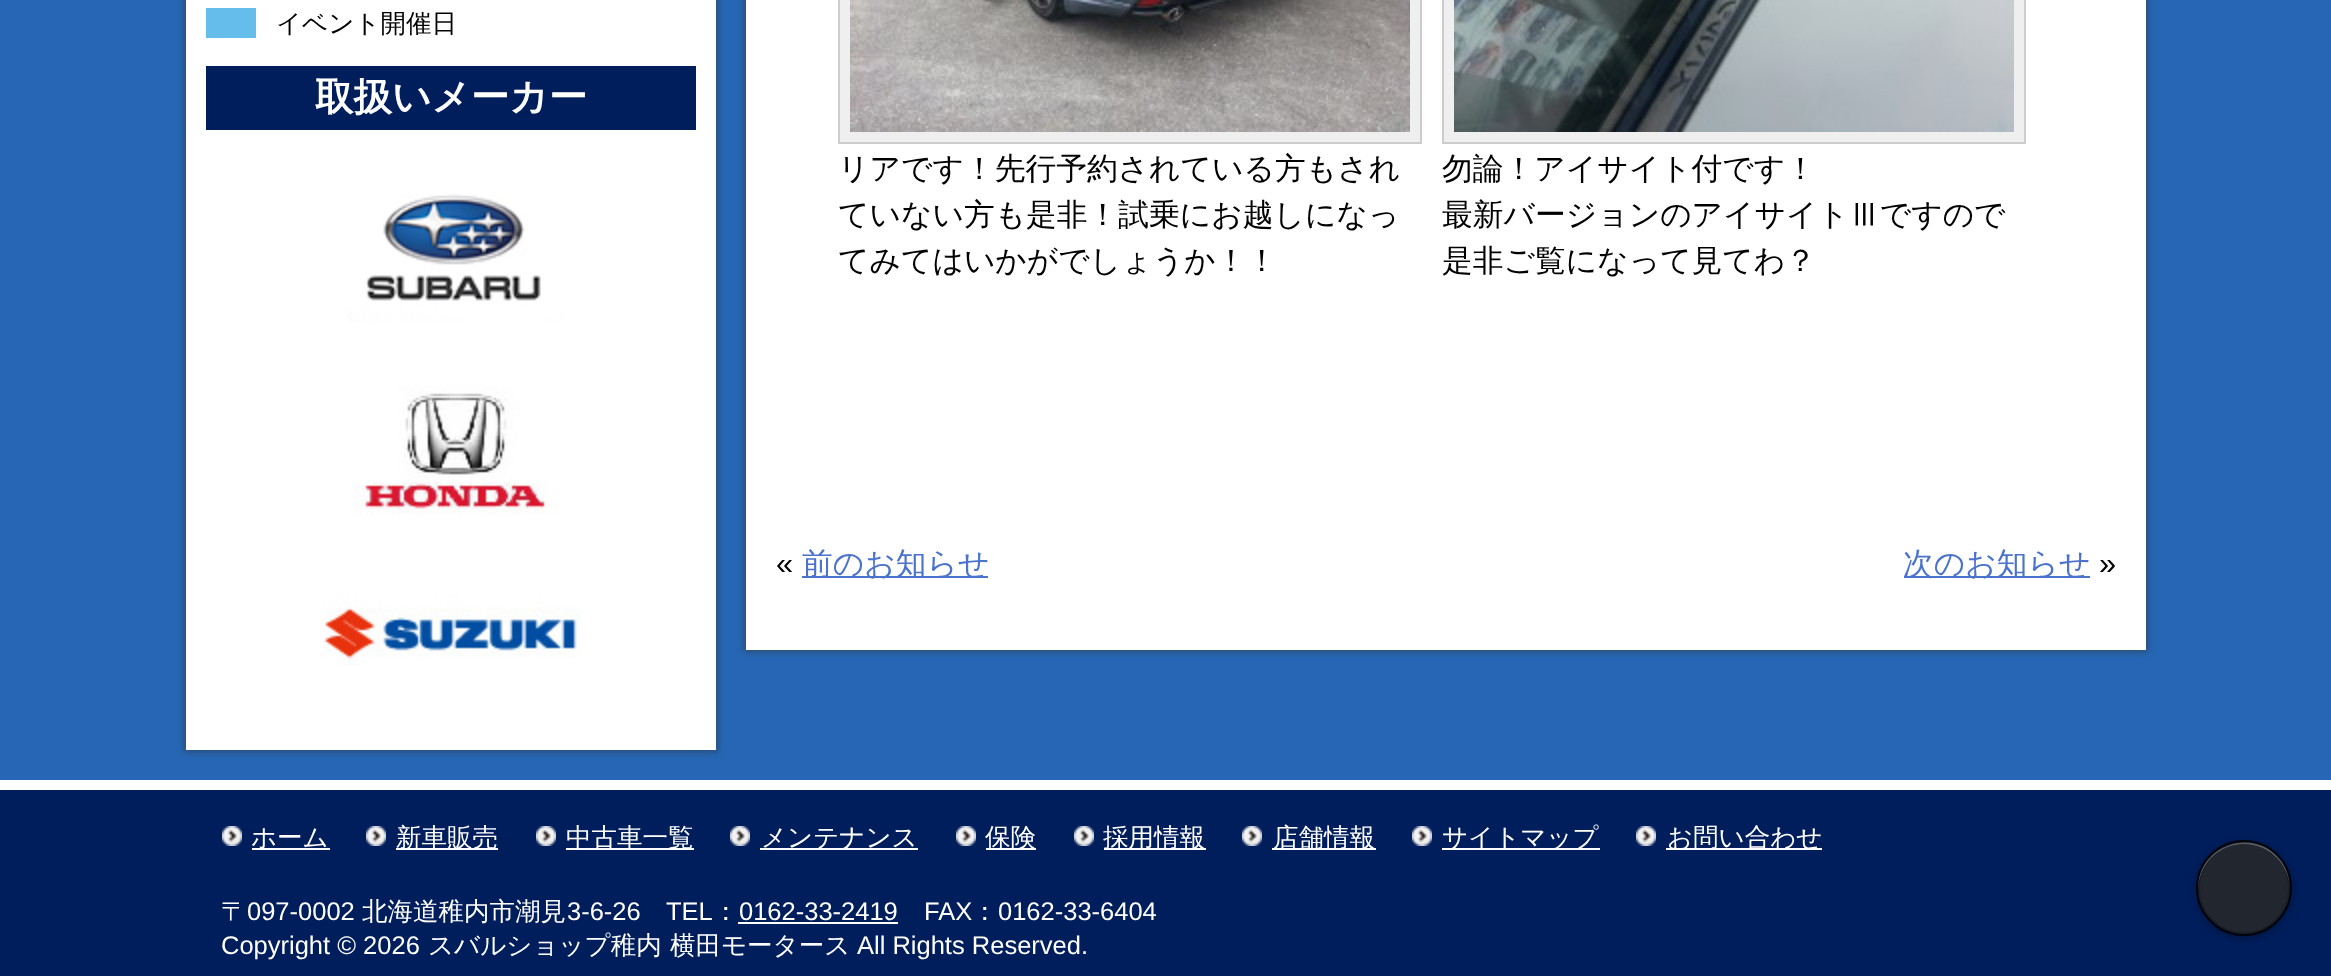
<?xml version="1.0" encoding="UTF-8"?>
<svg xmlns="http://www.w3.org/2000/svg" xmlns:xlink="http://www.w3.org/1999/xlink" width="2331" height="976">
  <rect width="100%" height="100%" fill="#2666b4" />
  <rect x="184" y="-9" width="534" height="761" fill="#323232" fill-opacity="0.5" filter="blur(3px)" />
  <rect x="186" width="530" height="750" fill="#ffffff" />
  <rect x="206" y="8" width="50" height="30" fill="#64bdeb" />
  <rect x="206" y="66" width="490" height="64" fill="#001e5c" />
  <image x="323" y="194" width="259" height="472" xlink:href="image1.png" />
  <rect x="744" y="-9" width="1404" height="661" fill="#323232" fill-opacity="0.5" filter="blur(3px)" />
  <rect x="746" width="1400" height="650" fill="#ffffff" />
  <rect x="839" y="-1" width="582" height="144" fill="#efefef" stroke="#cccccc" stroke-width="2" />
  <image x="850" y="0" width="560" height="132" xlink:href="image2.png" />
  <rect x="1443" y="-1" width="582" height="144" fill="#efefef" stroke="#cccccc" stroke-width="2" />
  <image x="1454" y="0" width="560" height="132" xlink:href="image3.png" />
  <rect x="802" y="576" width="186" height="2" fill="#4b73cd" />
  <rect x="1904" y="576" width="186" height="2" fill="#4b73cd" />
  <rect y="790" width="2331" height="186" fill="#001e5c" />
  <rect y="780" width="2331" height="10" fill="#ffffff" />
  <image x="222" y="826" width="20" height="20" xlink:href="image4.png" />
  <rect x="252" y="848" width="78" height="2" fill="#ffffff" />
  <image x="366" y="826" width="20" height="20" xlink:href="image4.png" />
  <rect x="396" y="848" width="102" height="2" fill="#ffffff" />
  <image x="536" y="826" width="20" height="20" xlink:href="image4.png" />
  <rect x="566" y="848" width="128" height="2" fill="#ffffff" />
  <image x="730" y="826" width="20" height="20" xlink:href="image4.png" />
  <rect x="760" y="848" width="158" height="2" fill="#ffffff" />
  <image x="956" y="826" width="20" height="20" xlink:href="image4.png" />
  <rect x="986" y="848" width="50" height="2" fill="#ffffff" />
  <image x="1074" y="826" width="20" height="20" xlink:href="image4.png" />
  <rect x="1104" y="848" width="102" height="2" fill="#ffffff" />
  <image x="1242" y="826" width="20" height="20" xlink:href="image4.png" />
  <rect x="1272" y="848" width="104" height="2" fill="#ffffff" />
  <image x="1412" y="826" width="20" height="20" xlink:href="image4.png" />
  <rect x="1442" y="848" width="158" height="2" fill="#ffffff" />
  <image x="1636" y="826" width="20" height="20" xlink:href="image4.png" />
  <rect x="1666" y="848" width="156" height="2" fill="#ffffff" />
  <rect x="738" y="922" width="160" height="2" fill="#ffffff" />
  <rect x="2196" y="842" width="96" height="96" rx="48" fill="#00040b" fill-opacity="0.4" filter="blur(3px)" />
  <circle cx="2244" cy="888" r="46" fill="#22262e" />
  <path d="M 2244 844 c 25 0 45 20 46 45 c 0 -9 -3 -19 -8 -27 c -25 -37 -85 -18 -84 27 c 1 -25 21 -45 46 -45 z" fill="#e0e3eb" fill-opacity="0.4" />
  <circle cx="2244" cy="888" r="45" fill="none" stroke="#00040b" stroke-opacity="0.2" stroke-width="2" />
  <circle cx="2244" cy="888" r="47" fill="none" stroke="#00040b" stroke-width="2" />
  <text x="276" y="32" style="font-family: WenQuanYi Zen Hei; font-size: 25.5px; font-weight: 500; fill: #000000">イベント開催日</text>
  <text x="315" y="110" style="font-family: WenQuanYi Zen Hei; font-size: 38.5px; font-weight: bold; fill: #ffffff">取扱いメーカー</text>
  <text x="838" y="179" style="font-family: WenQuanYi Zen Hei; font-size: 30.75px; font-weight: 500; fill: #000000">リアです！先行予約されている方もされ</text>
  <text x="838" y="225" style="font-family: WenQuanYi Zen Hei; font-size: 30.75px; font-weight: 500; fill: #000000">ていない方も是非！試乗にお越しになっ</text>
  <text x="838" y="271" style="font-family: WenQuanYi Zen Hei; font-size: 30.75px; font-weight: 500; fill: #000000">てみてはいかがでしょうか！！</text>
  <text x="1442" y="179" style="font-family: WenQuanYi Zen Hei; font-size: 30.75px; font-weight: 500; fill: #000000">勿論！アイサイト付です！</text>
  <text x="1442" y="225" style="font-family: WenQuanYi Zen Hei; font-size: 30.75px; font-weight: 500; fill: #000000">最新バージョンのアイサイトⅢですので</text>
  <text x="1442" y="271" style="font-family: WenQuanYi Zen Hei; font-size: 30.75px; font-weight: 500; fill: #000000">是非ご覧になって見てわ？</text>
  <text x="776" y="574" style="font-family: Liberation Sans; font-size: 30.75px; fill: #000000">«</text>
  <text x="802" y="574" style="font-family: WenQuanYi Zen Hei; font-size: 30.75px; font-weight: 500; fill: #4b73cd">前のお知らせ</text>
  <text x="1903" y="574" style="font-family: WenQuanYi Zen Hei; font-size: 30.75px; font-weight: 500; fill: #4b73cd">次のお知らせ</text>
  <text x="2099" y="574" style="font-family: Liberation Sans; font-size: 30.75px; fill: #000000">»</text>
  <text x="251" y="846" style="font-family: WenQuanYi Zen Hei; font-size: 25.5px; font-weight: 500; fill: #ffffff">ホーム</text>
  <text x="396" y="846" style="font-family: WenQuanYi Zen Hei; font-size: 25.5px; font-weight: 500; fill: #ffffff">新車販売</text>
  <text x="566" y="846" style="font-family: WenQuanYi Zen Hei; font-size: 25.5px; font-weight: 500; fill: #ffffff">中古車一覧</text>
  <text x="761" y="846" style="font-family: WenQuanYi Zen Hei; font-size: 25.5px; font-weight: 500; fill: #ffffff">メンテナンス</text>
  <text x="985" y="846" style="font-family: WenQuanYi Zen Hei; font-size: 25.5px; font-weight: 500; fill: #ffffff">保険</text>
  <text x="1103" y="846" style="font-family: WenQuanYi Zen Hei; font-size: 25.5px; font-weight: 500; fill: #ffffff">採用情報</text>
  <text x="1273" y="846" style="font-family: WenQuanYi Zen Hei; font-size: 25.5px; font-weight: 500; fill: #ffffff">店舗情報</text>
  <text x="1442" y="846" style="font-family: WenQuanYi Zen Hei; font-size: 25.5px; font-weight: 500; fill: #ffffff">サイトマップ</text>
  <text x="1667" y="846" style="font-family: WenQuanYi Zen Hei; font-size: 25.5px; font-weight: 500; fill: #ffffff">お問い合わせ</text>
  <text x="221" y="920" style="font-family: WenQuanYi Zen Hei; font-size: 25.5px; font-weight: 500; fill: #ffffff">〒</text>
  <text x="247" y="920" style="font-family: Liberation Sans; font-size: 25.5px; fill: #ffffff">097-0002</text>
  <text x="362" y="920" style="font-family: WenQuanYi Zen Hei; font-size: 25.5px; font-weight: 500; fill: #ffffff">北海道稚内市潮見</text>
  <text x="567" y="920" style="font-family: Liberation Sans; font-size: 25.5px; fill: #ffffff">3-6-26</text>
  <text x="666" y="920" style="font-family: Liberation Sans; font-size: 25.5px; fill: #ffffff">TEL</text>
  <text x="713" y="920" style="font-family: WenQuanYi Zen Hei; font-size: 25.5px; font-weight: 500; fill: #ffffff">：</text>
  <text x="739" y="920" style="font-family: Liberation Sans; font-size: 25.5px; fill: #ffffff">0162-33-2419</text>
  <text x="924" y="920" style="font-family: Liberation Sans; font-size: 25.5px; fill: #ffffff">FAX</text>
  <text x="972" y="920" style="font-family: WenQuanYi Zen Hei; font-size: 25.5px; font-weight: 500; fill: #ffffff">：</text>
  <text x="998" y="920" style="font-family: Liberation Sans; font-size: 25.5px; fill: #ffffff">0162-33-6404</text>
  <text x="221" y="954" style="font-family: Liberation Sans; font-size: 25.5px; fill: #ffffff">Copyright © 2026</text>
  <text x="428" y="954" style="font-family: WenQuanYi Zen Hei; font-size: 25.5px; font-weight: 500; fill: #ffffff">スバルショップ稚内</text>
  <text x="670" y="954" style="font-family: WenQuanYi Zen Hei; font-size: 25.5px; font-weight: 500; fill: #ffffff">横田モータース</text>
  <text x="857" y="954" style="font-family: Liberation Sans; font-size: 25.5px; fill: #ffffff">All Rights Reserved.</text>
</svg>
